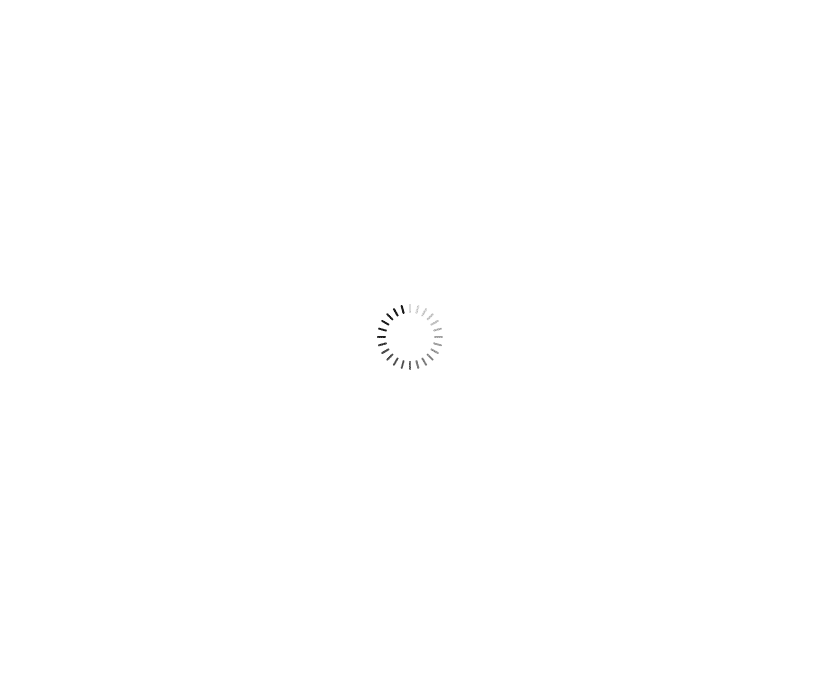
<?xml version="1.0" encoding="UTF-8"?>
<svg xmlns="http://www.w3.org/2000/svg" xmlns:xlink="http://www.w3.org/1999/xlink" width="820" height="674">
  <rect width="100%" height="100%" fill="#ffffff" />
  <image x="377" y="304" width="66" height="66" xlink:href="image1.png" />
</svg>
